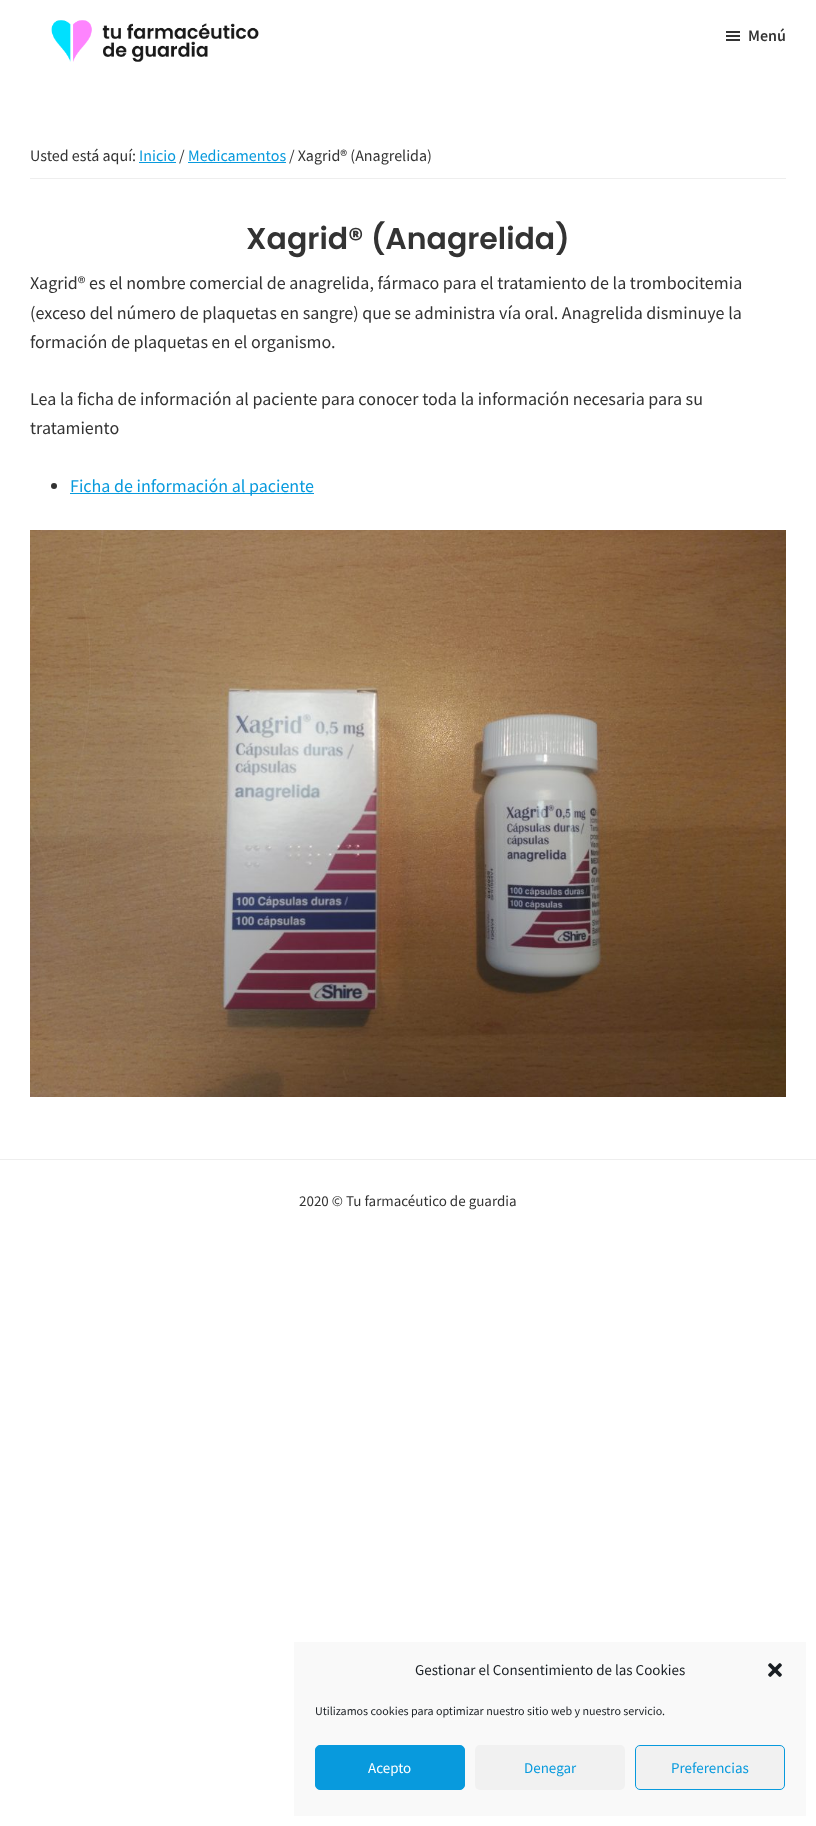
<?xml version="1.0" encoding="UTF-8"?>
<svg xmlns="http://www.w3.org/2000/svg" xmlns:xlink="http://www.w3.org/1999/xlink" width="816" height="1826">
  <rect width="100%" height="100%" fill="#ffffff" />
  <image x="51" y="20" width="208" height="42" xlink:href="image1.png" />
  <image x="726" y="31" width="14" height="10" xlink:href="image2.png" />
  <rect x="30" y="178" width="756" height="1" fill="#eeeeee" />
  <rect x="139" y="162" width="37" height="1" fill="#089add" />
  <rect x="188" y="162" width="98" height="1" fill="#089add" />
  <circle cx="54" cy="486" r="3" fill="#333333" />
  <rect x="70" y="493" width="244" height="1" fill="#089add" />
  <image x="30" y="530" width="756" height="567" xlink:href="image3.png" />
  <rect y="1159" width="816" height="1" fill="#eeeeee" />
  <rect x="294" y="1642" width="512" height="174" fill="#f9f9f9" />
  <image x="768" y="1663" width="14" height="14" xlink:href="image4.png" />
  <rect x="315.5" y="1745.5" width="149" height="44" rx="4.5" fill="#089add" stroke="#089add" />
  <rect x="475" y="1745" width="150" height="45" rx="5" fill="#f1f1f1" />
  <rect x="635.5" y="1745.5" width="149" height="44" rx="4.5" fill="#f1f1f1" stroke="#089add" />
  <text x="748" y="41" style="font-family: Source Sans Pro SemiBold; font-size: 16px; font-weight: 600; fill: #333333">Menú</text>
  <text x="30" y="161" style="font-family: Source Sans Pro; font-size: 16px; fill: #333333">Usted está aquí:</text>
  <text x="139" y="161" style="font-family: Source Sans Pro; font-size: 16px; fill: #089add">Inicio</text>
  <text x="179" y="161" style="font-family: Source Sans Pro; font-size: 16px; fill: #333333">/</text>
  <text x="188" y="161" style="font-family: Source Sans Pro; font-size: 16px; fill: #089add">Medicamentos</text>
  <text x="289" y="161" style="font-family: Source Sans Pro; font-size: 16px; fill: #333333">/ Xagrid® (Anagrelida)</text>
  <text x="246" y="249" style="font-family: Poppins; font-size: 30px; font-weight: 600; fill: #333333">Xagrid® (Anagrelida)</text>
  <text x="30" y="289" style="font-family: Source Sans Pro; font-size: 18px; fill: #333333">Xagrid® es el nombre comercial de anagrelida, fármaco para el tratamiento de la trombocitemia</text>
  <text x="30" y="319" style="font-family: Source Sans Pro; font-size: 18px; fill: #333333">(exceso del número de plaquetas en sangre) que se administra vía oral. Anagrelida disminuye la</text>
  <text x="30" y="348" style="font-family: Source Sans Pro; font-size: 18px; fill: #333333">formación de plaquetas en el organismo.</text>
  <text x="30" y="405" style="font-family: Source Sans Pro; font-size: 18px; fill: #333333">Lea la ficha de información al paciente para conocer toda la información necesaria para su</text>
  <text x="30" y="434" style="font-family: Source Sans Pro; font-size: 18px; fill: #333333">tratamiento</text>
  <text x="70" y="492" style="font-family: Source Sans Pro; font-size: 18px; fill: #089add">Ficha de información al paciente</text>
  <text x="299" y="1206" style="font-family: Source Sans Pro; font-size: 15px; fill: #333333">2020 © Tu farmacéutico de guardia</text>
  <text x="415" y="1675" style="font-family: Source Sans Pro; font-size: 15px; fill: #191e23">Gestionar el Consentimiento de las Cookies</text>
  <text x="315" y="1715" style="font-family: Source Sans Pro; font-size: 12px; fill: #191e23">Utilizamos cookies para optimizar nuestro sitio web y nuestro servicio.</text>
  <text x="368" y="1773" style="font-family: Source Sans Pro; font-size: 15px; fill: #ffffff">Acepto</text>
  <text x="524" y="1773" style="font-family: Source Sans Pro; font-size: 15px; fill: #089add">Denegar</text>
  <text x="671" y="1773" style="font-family: Source Sans Pro; font-size: 15px; fill: #089add">Preferencias</text>
</svg>
